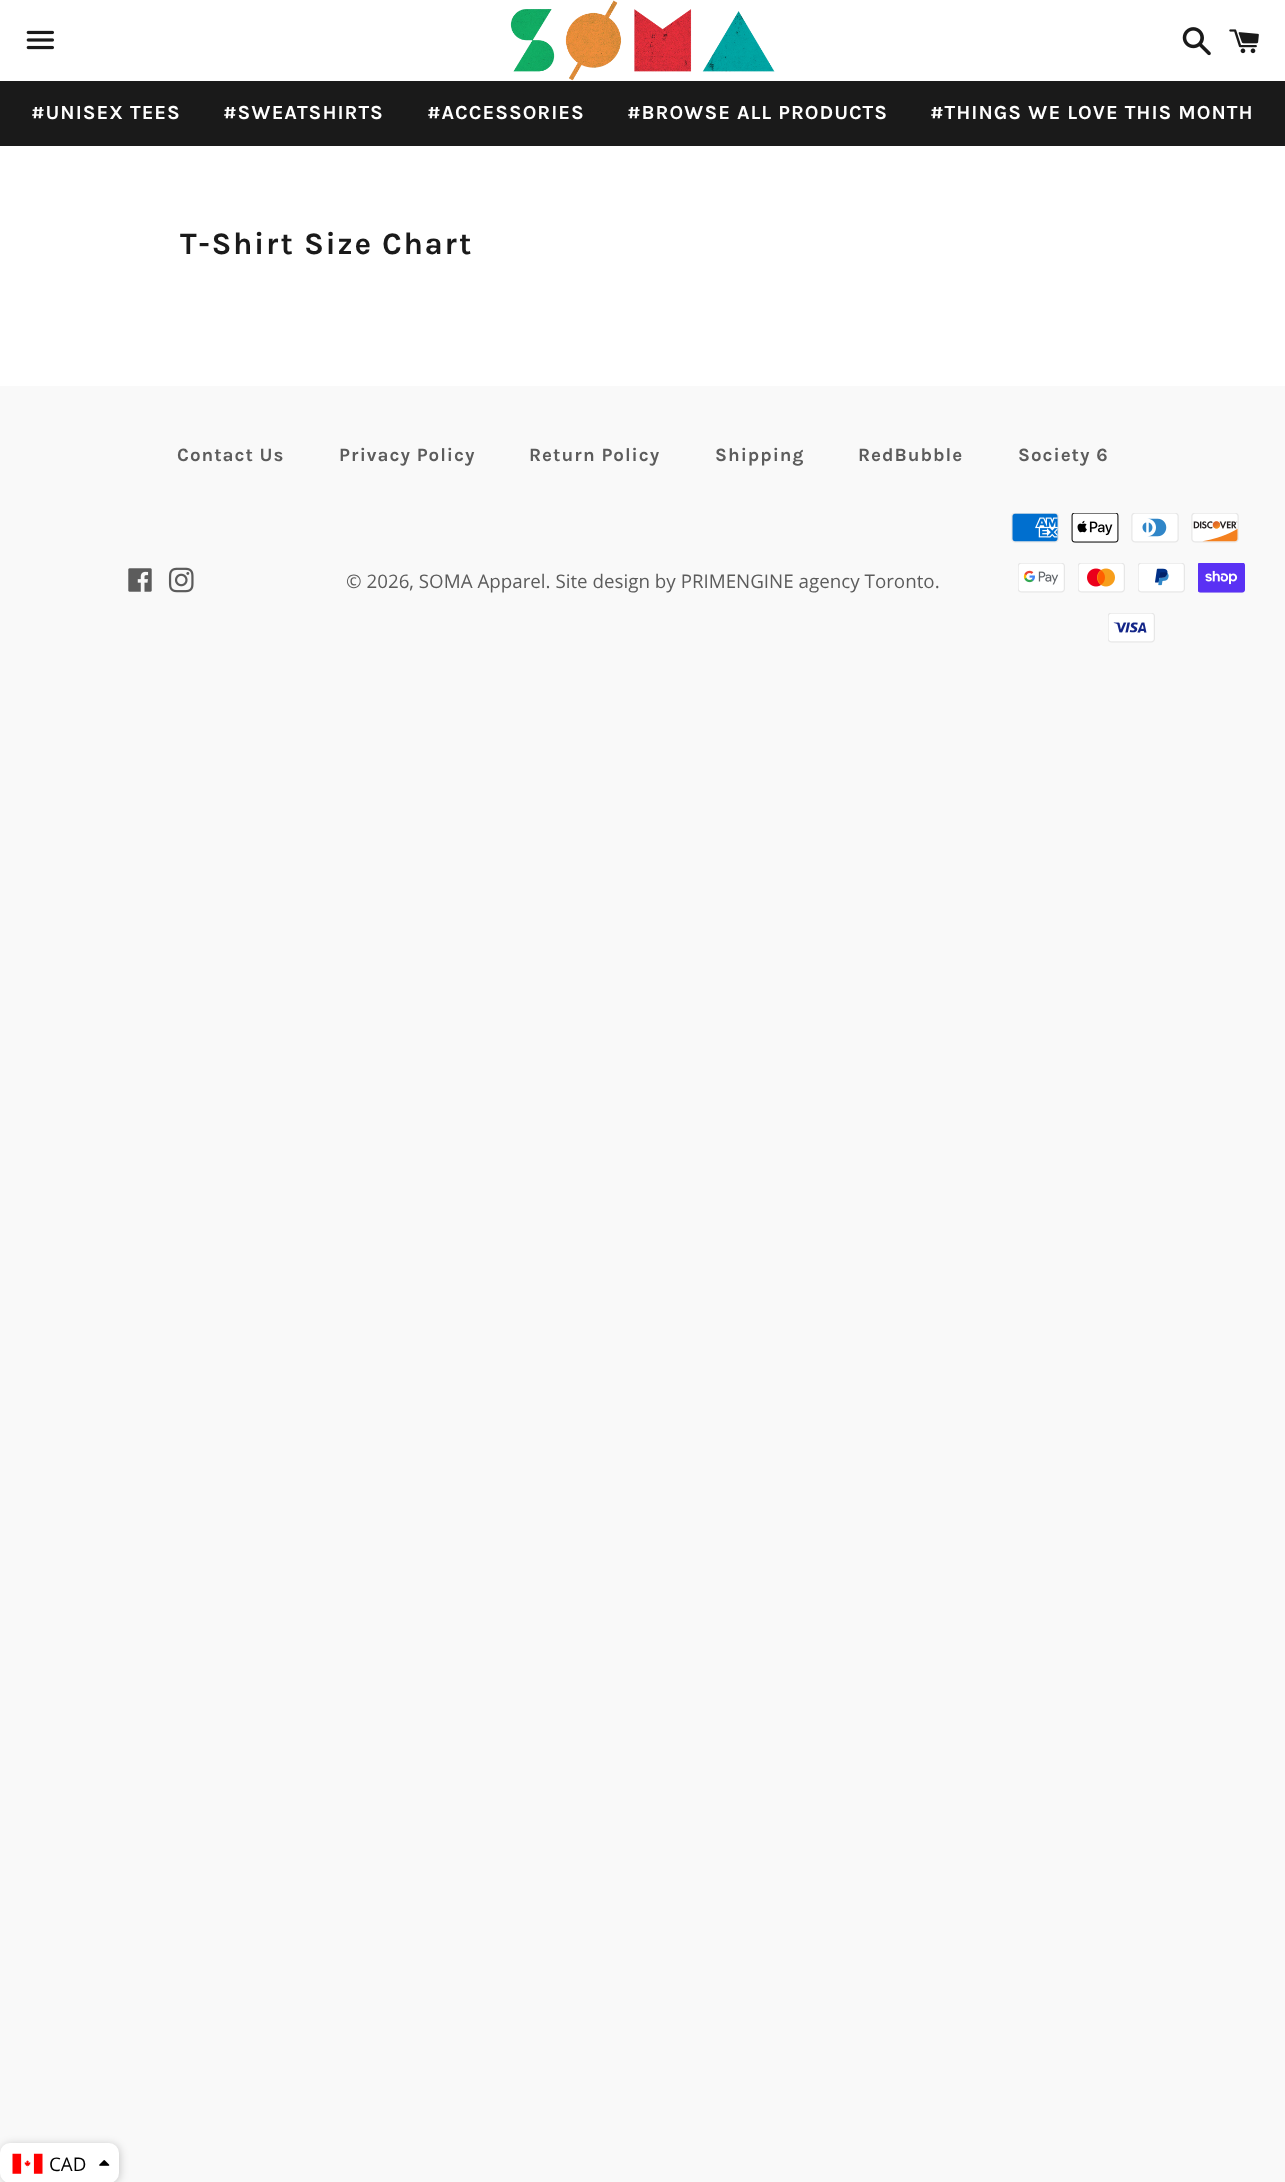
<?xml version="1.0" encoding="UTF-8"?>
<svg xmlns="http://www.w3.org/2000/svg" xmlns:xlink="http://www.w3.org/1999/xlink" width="1285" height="2182">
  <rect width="100%" height="100%" fill="#f9f9f9" />
  <rect width="1285" height="386" fill="#ffffff" />
  <image x="26" y="30" width="28" height="20" xlink:href="image1.png" />
  <image x="510" y="0" width="265" height="81" xlink:href="image2.png" />
  <image x="1182" y="27" width="29" height="29" xlink:href="image3.png" />
  <image x="1229" y="29" width="30" height="25" xlink:href="image4.png" />
  <rect y="81" width="1285" height="65" fill="#1a1a1a" />
  <image x="128" y="568" width="24" height="24" xlink:href="image5.png" />
  <image x="168" y="567" width="26" height="26" xlink:href="image6.png" />
  <image x="1011" y="513" width="48" height="30" xlink:href="image7.png" />
  <image x="1071" y="513" width="48" height="30" xlink:href="image8.png" />
  <image x="1131" y="513" width="48" height="30" xlink:href="image9.png" />
  <image x="1191" y="513" width="48" height="30" xlink:href="image10.png" />
  <image x="1018" y="563" width="47" height="30" xlink:href="image11.png" />
  <image x="1078" y="563" width="47" height="30" xlink:href="image12.png" />
  <image x="1138" y="563" width="47" height="30" xlink:href="image13.png" />
  <image x="1198" y="563" width="47" height="30" xlink:href="image14.png" />
  <image x="1108" y="613" width="47" height="30" xlink:href="image15.png" />
  <rect x="1" y="2144" width="119" height="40" rx="10" fill="#000000" fill-opacity="0.2" filter="blur(4px)" />
  <rect y="2143" width="119" height="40" rx="10" fill="#ffffff" />
  <image x="12" y="2153" width="31" height="21" xlink:href="image16.png" />
  <image x="99" y="2160" width="11" height="6" xlink:href="image17.png" />
  <text x="31" y="119" style="font-family: Karla; font-size: 20px; font-weight: bold; letter-spacing: 1px; fill: #ffffff">#UNISEX TEES</text>
  <text x="223" y="119" style="font-family: Karla; font-size: 20px; font-weight: bold; letter-spacing: 1px; fill: #ffffff">#SWEATSHIRTS</text>
  <text x="427" y="119" style="font-family: Karla; font-size: 20px; font-weight: bold; letter-spacing: 1px; fill: #ffffff">#ACCESSORIES</text>
  <text x="627" y="119" style="font-family: Karla; font-size: 20px; font-weight: bold; letter-spacing: 1px; fill: #ffffff">#BROWSE ALL PRODUCTS</text>
  <text x="930" y="119" style="font-family: Karla; font-size: 20px; font-weight: bold; letter-spacing: 1px; fill: #ffffff">#THINGS WE LOVE THIS MONTH</text>
  <text x="180" y="254" style="font-family: Karla; font-size: 31.25px; font-weight: bold; letter-spacing: 1.6px; fill: #1a1a1a">T-Shirt Size Chart</text>
  <text x="177" y="461" style="font-family: Karla; font-size: 18.75px; font-weight: bold; letter-spacing: 1px; fill: #5c5c5c">Contact Us</text>
  <text x="339" y="461" style="font-family: Karla; font-size: 18.75px; font-weight: bold; letter-spacing: 1px; fill: #5c5c5c">Privacy Policy</text>
  <text x="529" y="461" style="font-family: Karla; font-size: 18.75px; font-weight: bold; letter-spacing: 1px; fill: #5c5c5c">Return Policy</text>
  <text x="715" y="461" style="font-family: Karla; font-size: 18.75px; font-weight: bold; letter-spacing: 1px; fill: #5c5c5c">Shipping</text>
  <text x="858" y="461" style="font-family: Karla; font-size: 18.75px; font-weight: bold; letter-spacing: 1px; fill: #5c5c5c">RedBubble</text>
  <text x="1018" y="461" style="font-family: Karla; font-size: 18.75px; font-weight: bold; letter-spacing: 1px; fill: #5c5c5c">Society 6</text>
  <text x="346" y="588" style="font-family: Open Sans; font-size: 18.75px; fill: #5c5c5c">© 2026, SOMA Apparel. Site design by PRIMENGINE agency Toronto.</text>
  <text x="49" y="2171" style="font-family: Open Sans; font-size: 18.75px; fill: #000000">CAD</text>
</svg>
